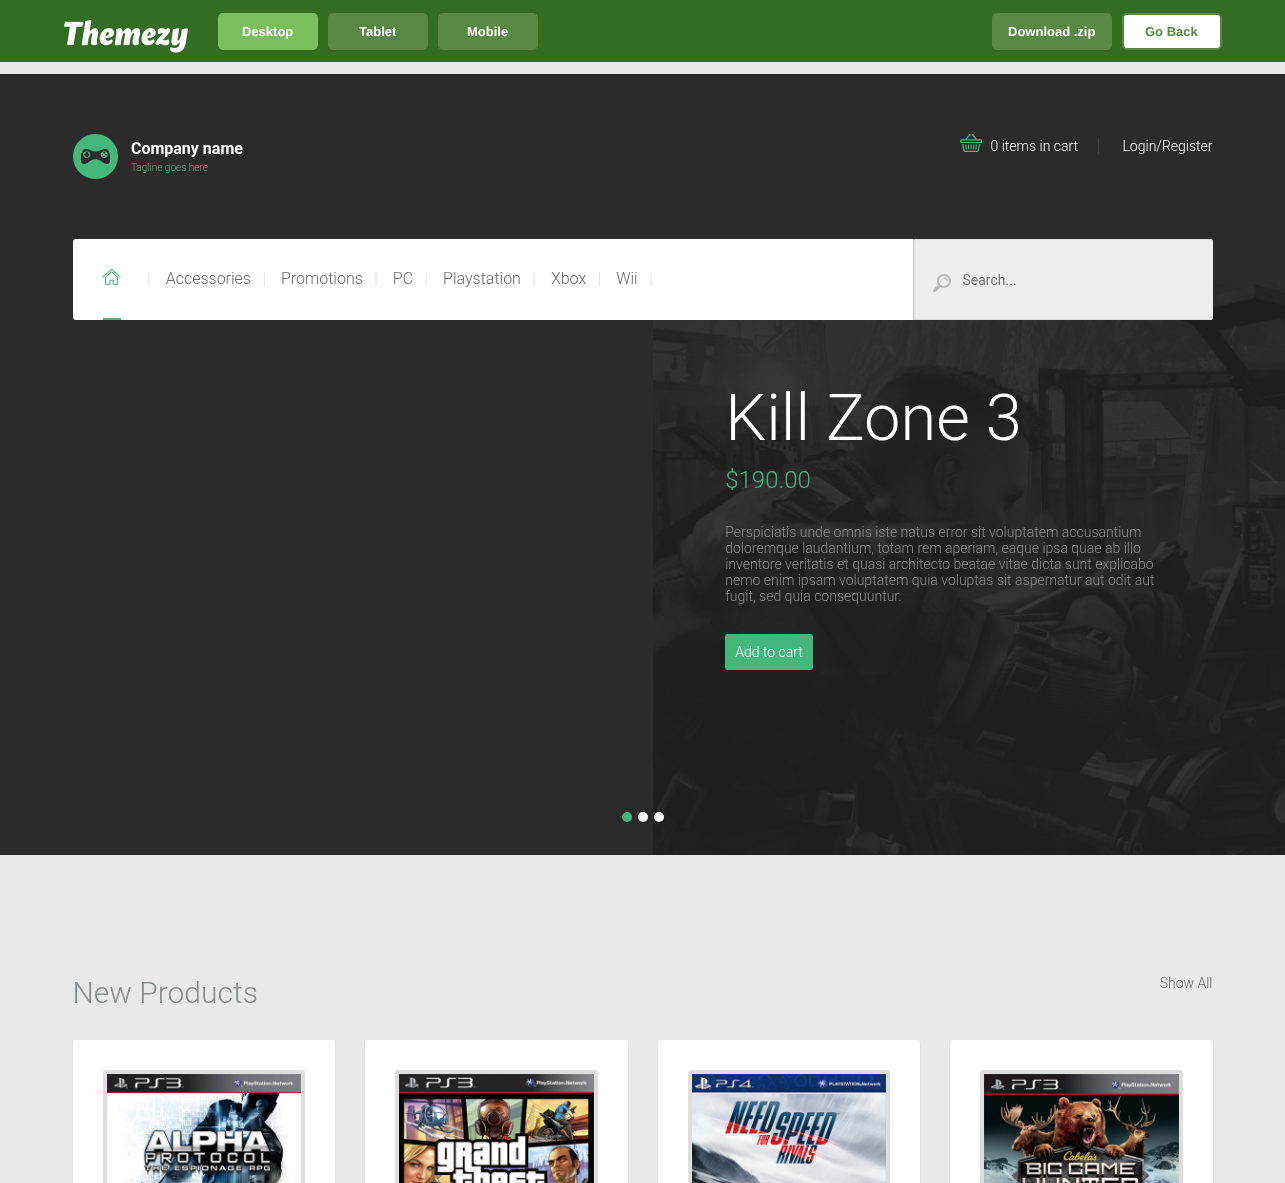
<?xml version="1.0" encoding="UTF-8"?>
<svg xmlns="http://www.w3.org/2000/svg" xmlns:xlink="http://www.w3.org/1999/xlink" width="1285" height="1183">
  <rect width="100%" height="100%" fill="#e9e9e9" />
  <rect width="1285" height="62" fill="#326d22" />
  <image x="64" y="20" width="124" height="33" xlink:href="image1.png" />
  <rect x="218" y="13" width="100" height="37" rx="5" fill="#7bbe5d" />
  <rect x="328" y="13" width="100" height="37" rx="5" fill="#588942" />
  <rect x="438" y="13" width="100" height="37" rx="5" fill="#588942" />
  <rect x="992" y="13" width="120" height="37" rx="5" fill="#588942" />
  <rect x="1123" y="14" width="98" height="35" rx="4" fill="#ffffff" stroke="#588942" stroke-width="2" />
  <image x="0" y="74" width="1285" height="1109" xlink:href="image2.png" />
  <text x="242" y="36" style="font-family: Liberation Sans; font-size: 13px; font-weight: bold; fill: #ffffff">Desktop</text>
  <text x="359" y="36" style="font-family: Liberation Sans; font-size: 13px; font-weight: bold; fill: #ffffff">Tablet</text>
  <text x="467" y="36" style="font-family: Liberation Sans; font-size: 13px; font-weight: bold; fill: #ffffff">Mobile</text>
  <text x="1008" y="36" style="font-family: Liberation Sans; font-size: 13px; font-weight: bold; fill: #ffffff">Download .zip</text>
  <text x="1145" y="36" style="font-family: Liberation Sans; font-size: 13px; font-weight: bold; fill: #588942">Go Back</text>
</svg>
